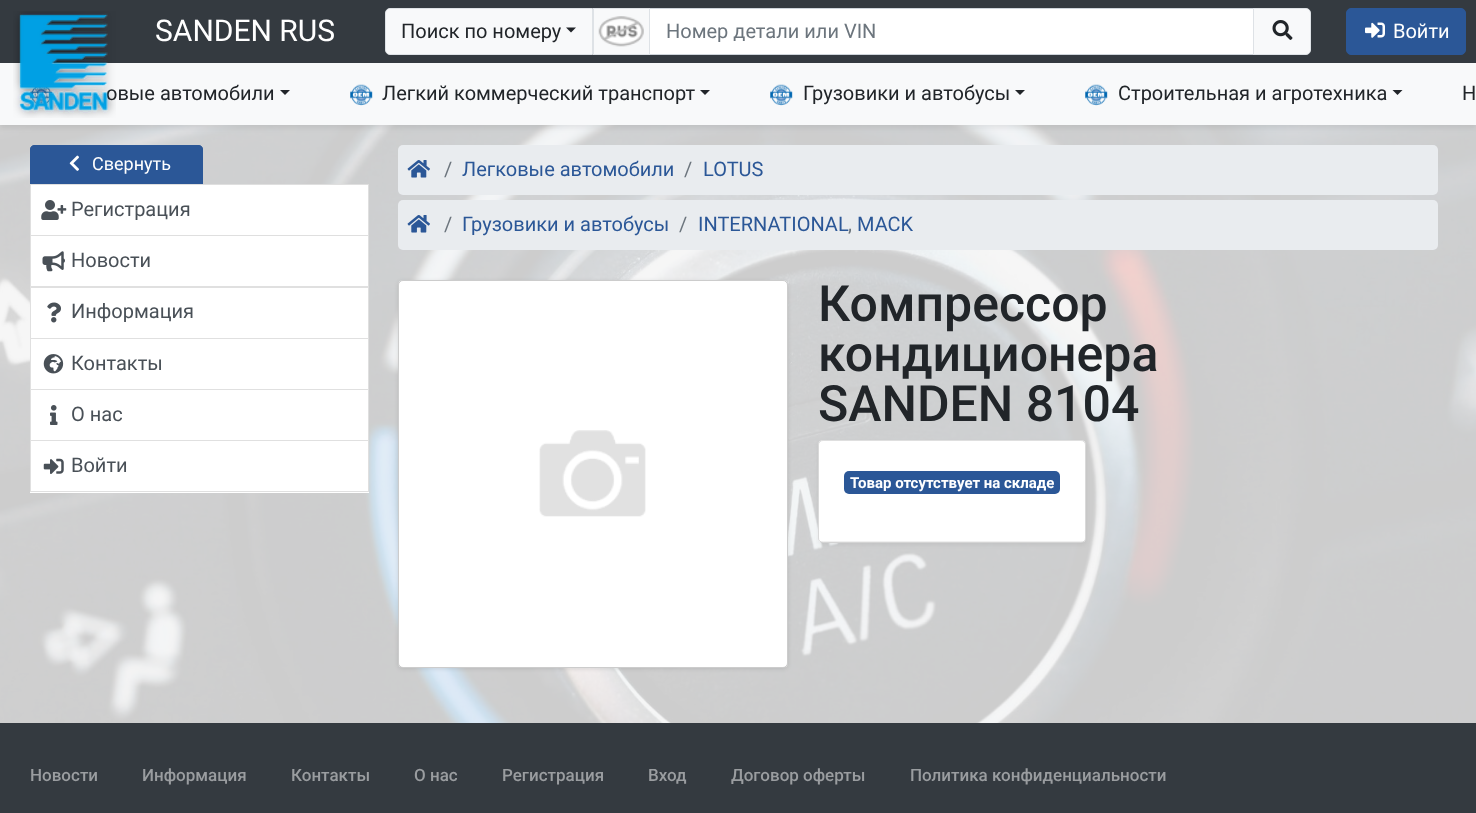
<?xml version="1.0" encoding="UTF-8"?>
<svg xmlns="http://www.w3.org/2000/svg" xmlns:xlink="http://www.w3.org/1999/xlink" width="1476" height="813">
  <defs>
    <clipPath id="clip1"><path d="M 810 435 h 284 v 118 h -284 z m 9 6 h 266 v 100 h -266 z" clip-rule="evenodd" /></clipPath>
  </defs>
  <rect width="100%" height="100%" fill="#f5f5f5" />
  <image x="0" y="125" width="1476" height="598" xlink:href="image7.png" />
  <rect y="65" width="1476" height="63" fill="#000000" fill-opacity="0.07" filter="blur(2.5px)" />
  <rect width="1476" height="63" fill="#343a40" />
  <path d="M 390 8.5 h 202.5 v 46 h -202.5 c -2.5 0 -4.5 -2 -4.5 -4.5 v -37 c 0 -2.5 2 -4.5 4.5 -4.5 z" fill="#f8f9fa" stroke="#dee2e6" />
  <path d="M 566 27.5 h 10 l -5 5 z" fill="#212529" />
  <rect x="649.5" y="8.5" width="604" height="46" fill="#ffffff" stroke="#ced4da" />
  <rect x="593.5" y="8.5" width="56" height="46" fill="#f8f9fa" stroke="#dee2e6" />
  <image x="598" y="16" width="46" height="31" xlink:href="image2.png" />
  <path d="M 1253.5 8.5 h 52.5 c 2.5 0 4.5 2 4.5 4.5 v 37 c 0 2.5 -2 4.5 -4.5 4.5 h -52.5 z" fill="#f8f9fa" stroke="#dee2e6" />
  <image x="1272" y="20" width="21" height="20" xlink:href="image3.png" />
  <rect x="1346.5" y="8.5" width="119" height="46" rx="4.5" fill="#2b5797" stroke="#2b5797" />
  <image x="1365" y="22" width="20" height="16" xlink:href="image4.png" />
  <rect y="63" width="1476" height="62" fill="#f8f9fa" />
  <image x="30" y="85" width="23" height="21" xlink:href="image5.png" />
  <path d="M 280 90 h 10 l -5 5 z" fill="#212529" />
  <image x="350" y="84" width="23" height="22" xlink:href="image6.png" />
  <path d="M 700 90 h 10 l -5 5 z" fill="#212529" />
  <image x="770" y="84" width="23" height="22" xlink:href="image6.png" />
  <path d="M 1015 90 h 10 l -5 5 z" fill="#212529" />
  <image x="1085" y="84" width="23" height="22" xlink:href="image6.png" />
  <path d="M 1392.5 90 h 10 l -5 5 z" fill="#212529" />
  <path d="M 34 145.5 h 165 c 2 0 3.5 1.5 3.5 3.5 v 35.5 h -172 v -35.5 c 0 -2 1.5 -3.5 3.5 -3.5 z" fill="#2b5797" stroke="#2b5797" />
  <image x="69" y="155" width="10" height="16" xlink:href="image8.png" />
  <rect x="30.5" y="184.5" width="338" height="51" fill="#ffffff" stroke="#dfdfdf" />
  <image x="41" y="200" width="26" height="20" xlink:href="image9.png" />
  <rect x="30" y="236" width="339" height="257" fill="#ffffff" />
  <path d="M 369 236 v 52 l -1 -2 v -50 z" fill="#dfdfdf" />
  <path d="M 369 288 h -339 l 1 -2 h 337 z" fill="#000000" fill-opacity="0.12" />
  <path d="M 30 288 v -52 h 1 v 50 z" fill="#000000" fill-opacity="0.12" />
  <image x="42" y="251" width="23" height="21" xlink:href="image10.png" />
  <path d="M 369 288 v 51 l -1 -1 v -50 z" fill="#dfdfdf" />
  <path d="M 369 339 h -339 l 1 -1 h 337 z" fill="#000000" fill-opacity="0.12" />
  <path d="M 30 339 v -51 h 1 v 50 z" fill="#000000" fill-opacity="0.12" />
  <image x="47" y="302" width="14" height="21" xlink:href="image11.png" />
  <path d="M 369 339 v 51 l -1 -1 v -50 z" fill="#dfdfdf" />
  <path d="M 369 390 h -339 l 1 -1 h 337 z" fill="#000000" fill-opacity="0.12" />
  <path d="M 30 390 v -51 h 1 v 50 z" fill="#000000" fill-opacity="0.12" />
  <image x="43" y="354" width="21" height="20" xlink:href="image12.png" />
  <path d="M 369 390 v 51 l -1 -1 v -50 z" fill="#dfdfdf" />
  <path d="M 369 441 h -339 l 1 -1 h 337 z" fill="#000000" fill-opacity="0.12" />
  <path d="M 30 441 v -51 h 1 v 50 z" fill="#000000" fill-opacity="0.12" />
  <image x="50" y="405" width="8" height="20" xlink:href="image13.png" />
  <path d="M 369 441 v 51 l -1 -1 v -50 z" fill="#dfdfdf" />
  <path d="M 369 492 h -339 l 1 -1 h 337 z" fill="#000000" fill-opacity="0.12" />
  <path d="M 30 492 v -51 h 1 v 50 z" fill="#000000" fill-opacity="0.12" />
  <image x="43" y="458" width="21" height="16" xlink:href="image14.png" />
  <rect x="398" y="145" width="1040" height="50" rx="5" fill="#e9ecef" />
  <image x="407" y="160" width="23" height="18" xlink:href="image15.png" />
  <rect x="398" y="200" width="1040" height="50" rx="5" fill="#e9ecef" />
  <image x="407" y="215" width="23" height="18" xlink:href="image15.png" />
  <rect x="398" y="281" width="390" height="388" rx="5" fill="#000000" fill-opacity="0.1" filter="blur(2px)" />
  <rect x="398" y="280" width="390" height="388" rx="5" fill="#ffffff" />
  <rect x="398.5" y="280.5" width="389" height="387" rx="4.5" fill="none" stroke="#000000" stroke-opacity="0.2" />
  <image x="539" y="430" width="107" height="87" xlink:href="image16.png" />
  <rect x="818" y="440" width="268" height="103" rx="5" fill="#ffffff" />
  <rect x="818.5" y="440.5" width="267" height="102" rx="4.5" fill="none" stroke="#000000" stroke-opacity="0.12" />
  <g clip-path="url(#clip1)">
    <rect x="819" y="444" width="266" height="100" fill="#000000" fill-opacity="0.07" filter="blur(2.5px)" />
  </g>
  <rect x="844" y="471" width="216" height="23" rx="5" fill="#2b5797" />
  <rect y="723" width="1476" height="90" fill="#343a40" />
  <text x="155" y="41" style="font-family: Roboto; font-size: 30px; fill: #ffffff">SANDEN RUS</text>
  <text x="401" y="38" style="font-family: Roboto; font-size: 20px; fill: #212529">Поиск по номеру</text>
  <text x="666" y="38" style="font-family: Roboto; font-size: 20px; fill: #6c757d">Номер детали или VIN</text>
  <text x="1393" y="38" style="font-family: Roboto; font-size: 20px; fill: #ffffff">Войти</text>
  <text x="106" y="100" style="font-family: Roboto; font-size: 20px; fill: #212529">овые автомобили</text>
  <image x="13" y="11" width="103" height="107" xlink:href="image1.png" />
  <text x="382" y="100" style="font-family: Roboto; font-size: 20px; fill: #212529">Легкий коммерческий транспорт</text>
  <text x="803" y="100" style="font-family: Roboto; font-size: 20px; fill: #212529">Грузовики и автобусы</text>
  <text x="1118" y="100" style="font-family: Roboto; font-size: 20px; fill: #212529">Строительная и агротехника</text>
  <text x="1462" y="100" style="font-family: Roboto; font-size: 20px; fill: #212529">Н</text>
  <text x="92" y="170" style="font-family: Roboto; font-size: 18px; fill: #ffffff">Свернуть</text>
  <text x="71" y="216" style="font-family: Roboto; font-size: 20px; fill: #495057">Регистрация</text>
  <text x="71" y="267" style="font-family: Roboto; font-size: 20px; fill: #495057">Новости</text>
  <text x="71" y="318" style="font-family: Roboto; font-size: 20px; fill: #495057">Информация</text>
  <text x="71" y="370" style="font-family: Roboto; font-size: 20px; fill: #495057">Контакты</text>
  <text x="71" y="421" style="font-family: Roboto; font-size: 20px; fill: #495057">О нас</text>
  <text x="71" y="472" style="font-family: Roboto; font-size: 20px; fill: #495057">Войти</text>
  <text x="444" y="176" style="font-family: Roboto; font-size: 20px; fill: #6c757d">/</text>
  <text x="462" y="176" style="font-family: Roboto; font-size: 20px; fill: #2b5797">Легковые автомобили</text>
  <text x="684" y="176" style="font-family: Roboto; font-size: 20px; fill: #6c757d">/</text>
  <text x="703" y="176" style="font-family: Roboto; font-size: 20px; fill: #2b5797">LOTUS</text>
  <text x="444" y="231" style="font-family: Roboto; font-size: 20px; fill: #6c757d">/</text>
  <text x="462" y="231" style="font-family: Roboto; font-size: 20px; fill: #2b5797">Грузовики и автобусы</text>
  <text x="679" y="231" style="font-family: Roboto; font-size: 20px; fill: #6c757d">/</text>
  <text x="698" y="231" style="font-family: Roboto; font-size: 20px; fill: #2b5797">INTERNATIONAL</text>
  <text x="848" y="231" style="font-family: Roboto; font-size: 20px; fill: #6c757d">,</text>
  <text x="857" y="231" style="font-family: Roboto; font-size: 20px; fill: #2b5797">MACK</text>
  <text x="818" y="321" style="font-family: Roboto; font-size: 50px; font-weight: 500; fill: #212529">Компрессор</text>
  <text x="818" y="371" style="font-family: Roboto; font-size: 50px; font-weight: 500; fill: #212529">кондиционера</text>
  <text x="818" y="421" style="font-family: Roboto; font-size: 50px; font-weight: 500; fill: #212529">SANDEN 8104</text>
  <text x="850" y="488" style="font-family: Roboto; font-size: 15px; font-weight: bold; fill: #ffffff">Товар отсутствует на складе</text>
  <text x="30" y="781" style="font-family: Roboto; font-size: 17px; font-weight: 500; fill: #9a9da0">Новости</text>
  <text x="142" y="781" style="font-family: Roboto; font-size: 17px; font-weight: 500; fill: #9a9da0">Информация</text>
  <text x="291" y="781" style="font-family: Roboto; font-size: 17px; font-weight: 500; fill: #9a9da0">Контакты</text>
  <text x="414" y="781" style="font-family: Roboto; font-size: 17px; font-weight: 500; fill: #9a9da0">О нас</text>
  <text x="502" y="781" style="font-family: Roboto; font-size: 17px; font-weight: 500; fill: #9a9da0">Регистрация</text>
  <text x="648" y="781" style="font-family: Roboto; font-size: 17px; font-weight: 500; fill: #9a9da0">Вход</text>
  <text x="731" y="781" style="font-family: Roboto; font-size: 17px; font-weight: 500; fill: #9a9da0">Договор оферты</text>
  <text x="910" y="781" style="font-family: Roboto; font-size: 17px; font-weight: 500; fill: #9a9da0">Политика конфиденциальности</text>
</svg>
